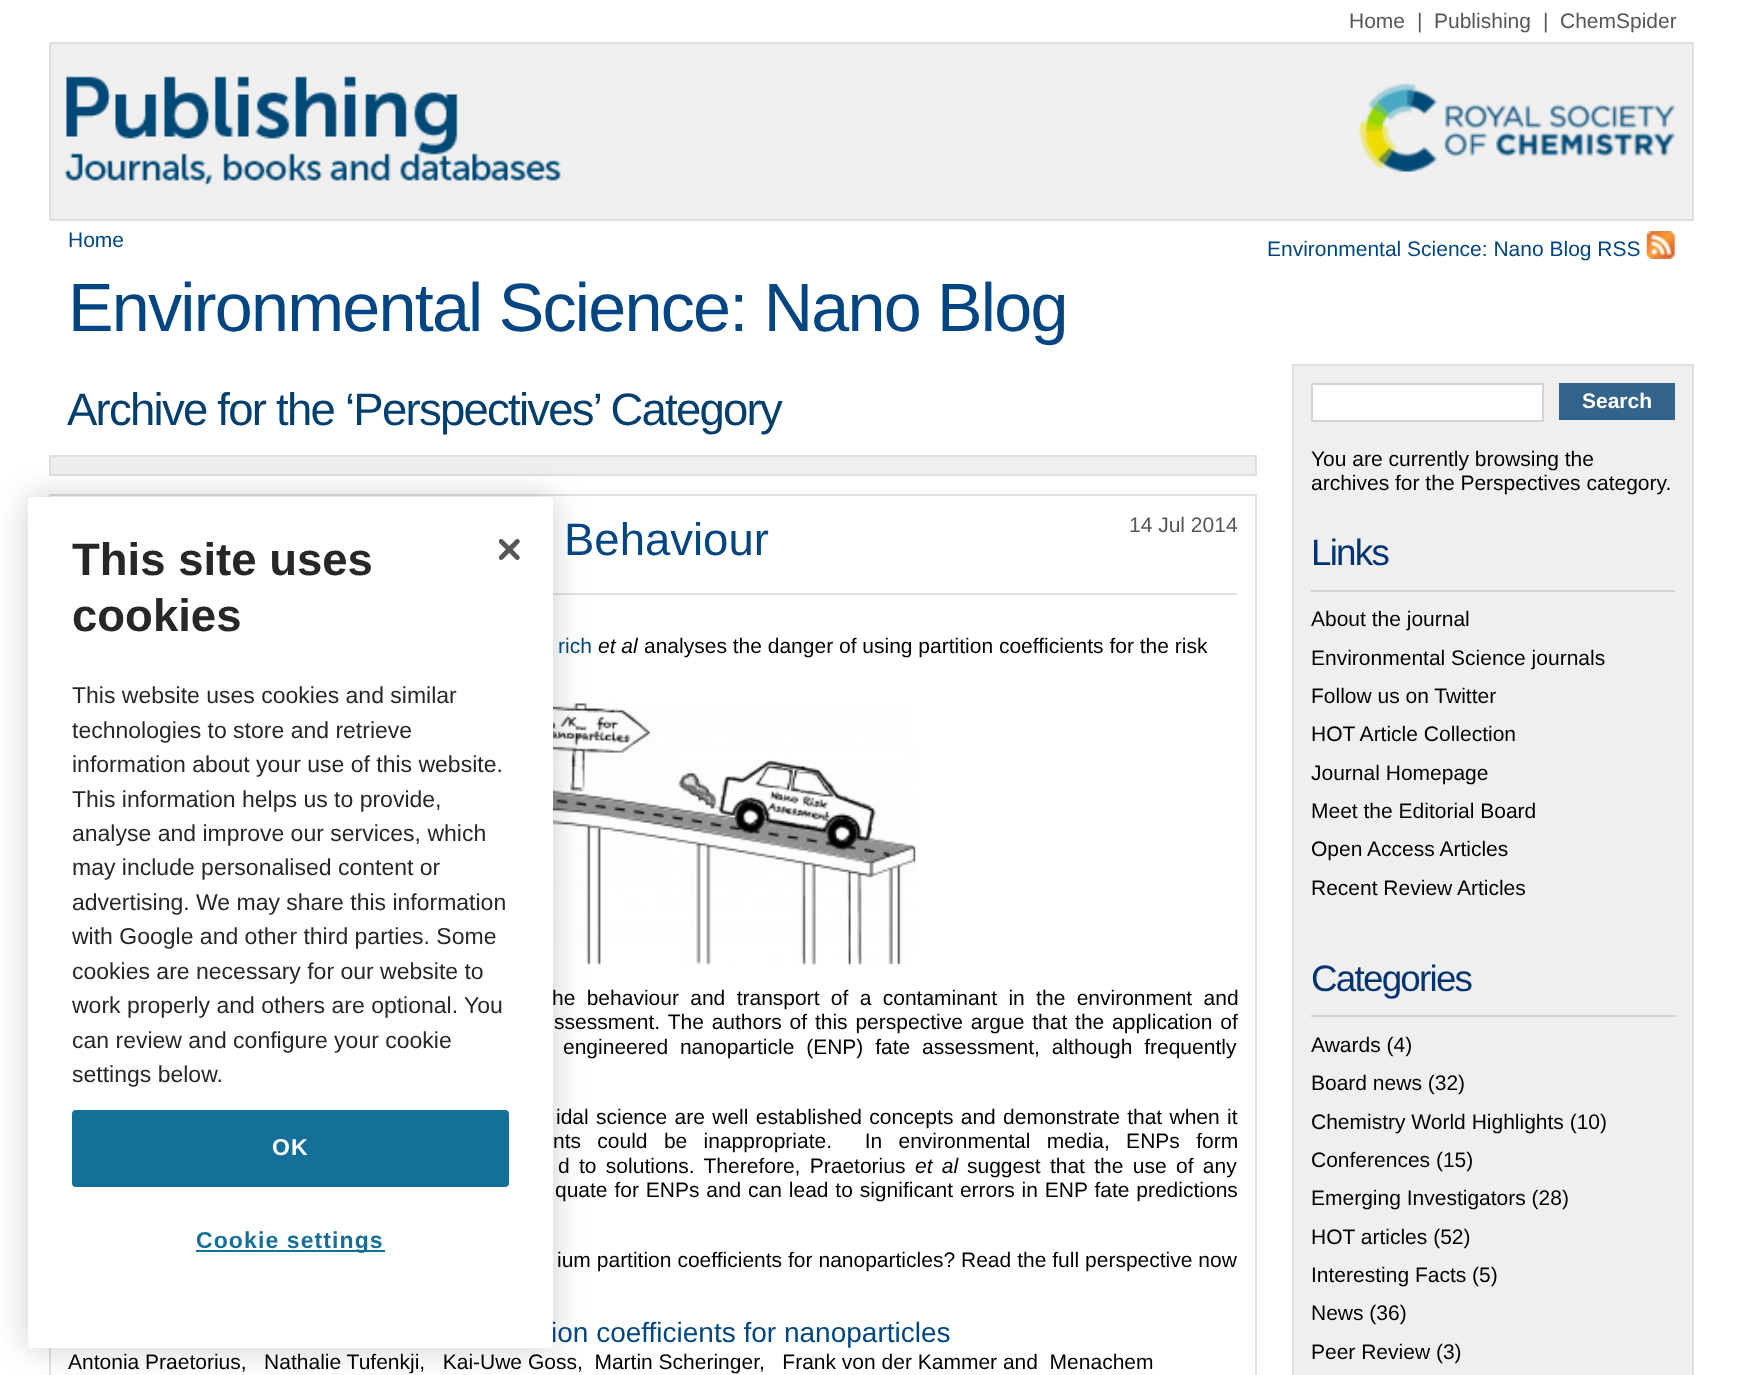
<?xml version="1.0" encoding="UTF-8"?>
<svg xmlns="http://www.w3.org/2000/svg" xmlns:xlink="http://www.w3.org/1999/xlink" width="1743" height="1375">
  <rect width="100%" height="100%" fill="#ffffff" />
  <rect x="50" y="43" width="1643" height="177" fill="#efefef" stroke="#dfdfdf" stroke-width="2" />
  <image x="64" y="76" width="497" height="109" xlink:href="image1.png" />
  <image x="1359" y="83" width="317" height="89" xlink:href="image2.png" />
  <image x="1646" y="231" width="29" height="28" xlink:href="image3.png" />
  <rect x="50" y="456" width="1206" height="19" fill="#efefef" stroke="#dfdfdf" stroke-width="2" />
  <rect x="50" y="495" width="1206" height="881" fill="none" stroke="#e1e1e1" stroke-width="2" />
  <rect x="553" y="593" width="684" height="2" fill="#e1e1e1" />
  <image x="553" y="703" width="363" height="262" xlink:href="image4.png" />
  <rect x="1293" y="365" width="400" height="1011" fill="#efefef" stroke="#dfdfdf" stroke-width="2" />
  <rect x="1312" y="384" width="231" height="37" fill="#ffffff" stroke="#d4d4d4" stroke-width="2" />
  <rect x="1559" y="383" width="116" height="37" fill="#33648b" />
  <rect x="1311" y="590" width="364" height="2" fill="#ced2d5" />
  <rect x="1311" y="1015" width="364" height="2" fill="#ced2d5" />
  <rect x="28" y="497" width="525" height="851" rx="4" fill="#000000" fill-opacity="0.2" filter="blur(16px)" />
  <text x="1349" y="28" style="font-family: Liberation Sans; font-size: 21px; fill: #565656">Home</text>
  <text x="1417" y="28" style="font-family: Liberation Sans; font-size: 21px; fill: #565656">|</text>
  <text x="1434" y="28" style="font-family: Liberation Sans; font-size: 21px; fill: #565656">Publishing</text>
  <text x="1543" y="28" style="font-family: Liberation Sans; font-size: 21px; fill: #565656">|</text>
  <text x="1560" y="28" style="font-family: Liberation Sans; font-size: 21px; fill: #565656">ChemSpider</text>
  <text x="68" y="247" style="font-family: Liberation Sans; font-size: 21px; fill: #014682">Home</text>
  <text x="1267" y="256" style="font-family: Liberation Sans; font-size: 21px; fill: #014682">Environmental Science: Nano Blog RSS</text>
  <text x="68" y="331" style="font-family: Liberation Sans; font-size: 68.25px; letter-spacing: -1.75px; fill: #014682">Environmental Science: Nano Blog</text>
  <text x="67" y="425" style="font-family: Liberation Sans; font-size: 45.5px; letter-spacing: -1.75px; fill: #003e6e">Archive for the ‘Perspectives’ Category</text>
  <text x="564" y="555" style="font-family: Liberation Sans; font-size: 45.5px; fill: #014682">Behaviour</text>
  <text x="1129" y="532" style="font-family: Liberation Sans; font-size: 21px; fill: #565656">14 Jul 2014</text>
  <text x="558" y="653" style="font-family: Liberation Sans; font-size: 21px; fill: #014682">rich</text>
  <text x="598" y="653" style="font-family: Liberation Sans; font-size: 21px; font-style: italic; fill: #000000">et al</text>
  <text x="644" y="653" style="font-family: Liberation Sans; font-size: 21px; fill: #000000">analyses the danger of using partition coefficients for the risk</text>
  <text x="552" y="1005" word-spacing="5.5" style="font-family: Liberation Sans; font-size: 21px; fill: #000000">he behaviour and transport of a contaminant in the environment and</text>
  <text x="554" y="1029" word-spacing="2" style="font-family: Liberation Sans; font-size: 21px; fill: #000000">ssessment. The authors of this perspective argue that the application of</text>
  <text x="563" y="1054" word-spacing="6" style="font-family: Liberation Sans; font-size: 21px; fill: #000000">engineered nanoparticle (ENP) fate assessment, although frequently</text>
  <text x="556" y="1124" word-spacing="1.5" style="font-family: Liberation Sans; font-size: 21px; fill: #000000">idal science are well established concepts and demonstrate that when it</text>
  <text x="553" y="1148" word-spacing="10.5" style="font-family: Liberation Sans; font-size: 21px; fill: #000000" xml:space="preserve">nts could be inappropriate.  In environmental media, ENPs form</text>
  <text x="558" y="1173" word-spacing="3.5" style="font-family: Liberation Sans; font-size: 21px; fill: #000000">d to solutions. Therefore, Praetorius</text>
  <text x="915" y="1173" word-spacing="3.5" style="font-family: Liberation Sans; font-size: 21px; font-style: italic; fill: #000000">et al</text>
  <text x="967" y="1173" word-spacing="3.5" style="font-family: Liberation Sans; font-size: 21px; fill: #000000">suggest that the use of any</text>
  <text x="555" y="1197" word-spacing="1" style="font-family: Liberation Sans; font-size: 21px; fill: #000000">quate for ENPs and can lead to significant errors in ENP fate predictions</text>
  <text x="557" y="1267" word-spacing="0.1" style="font-family: Liberation Sans; font-size: 21px; fill: #000000">ium partition coefficients for nanoparticles? Read the full perspective now</text>
  <text x="551" y="1342" style="font-family: Liberation Sans; font-size: 28px; fill: #014682">ion coefficients for nanoparticles</text>
  <text x="68" y="1369" style="font-family: Liberation Sans; font-size: 21px; fill: #000000" xml:space="preserve">Antonia Praetorius,   Nathalie Tufenkji,   Kai-Uwe Goss,  Martin Scheringer,   Frank von der Kammer and  Menachem</text>
  <text x="1582" y="408" style="font-family: Liberation Sans; font-size: 21px; font-weight: bold; fill: #ffffff">Search</text>
  <text x="1311" y="466" style="font-family: Liberation Sans; font-size: 21px; fill: #000000">You are currently browsing the</text>
  <text x="1311" y="490" style="font-family: Liberation Sans; font-size: 21px; fill: #000000">archives for the Perspectives category.</text>
  <text x="1311" y="565" style="font-family: Liberation Sans; font-size: 36.75px; letter-spacing: -1.75px; fill: #003372">Links</text>
  <text x="1311" y="626" style="font-family: Liberation Sans; font-size: 21px; fill: #000000">About the journal</text>
  <text x="1311" y="665" style="font-family: Liberation Sans; font-size: 21px; fill: #000000">Environmental Science journals</text>
  <text x="1311" y="703" style="font-family: Liberation Sans; font-size: 21px; fill: #000000">Follow us on Twitter</text>
  <text x="1311" y="741" style="font-family: Liberation Sans; font-size: 21px; fill: #000000">HOT Article Collection</text>
  <text x="1311" y="780" style="font-family: Liberation Sans; font-size: 21px; fill: #000000">Journal Homepage</text>
  <text x="1311" y="818" style="font-family: Liberation Sans; font-size: 21px; fill: #000000">Meet the Editorial Board</text>
  <text x="1311" y="856" style="font-family: Liberation Sans; font-size: 21px; fill: #000000">Open Access Articles</text>
  <text x="1311" y="895" style="font-family: Liberation Sans; font-size: 21px; fill: #000000">Recent Review Articles</text>
  <text x="1311" y="991" style="font-family: Liberation Sans; font-size: 36.75px; letter-spacing: -1.75px; fill: #003372">Categories</text>
  <text x="1311" y="1052" style="font-family: Liberation Sans; font-size: 21px; fill: #000000">Awards (4)</text>
  <text x="1311" y="1090" style="font-family: Liberation Sans; font-size: 21px; fill: #000000">Board news (32)</text>
  <text x="1311" y="1129" style="font-family: Liberation Sans; font-size: 21px; fill: #000000">Chemistry World Highlights (10)</text>
  <text x="1311" y="1167" style="font-family: Liberation Sans; font-size: 21px; fill: #000000">Conferences (15)</text>
  <text x="1311" y="1205" style="font-family: Liberation Sans; font-size: 21px; fill: #000000">Emerging Investigators (28)</text>
  <text x="1311" y="1244" style="font-family: Liberation Sans; font-size: 21px; fill: #000000">HOT articles (52)</text>
  <text x="1311" y="1282" style="font-family: Liberation Sans; font-size: 21px; fill: #000000">Interesting Facts (5)</text>
  <text x="1311" y="1320" style="font-family: Liberation Sans; font-size: 21px; fill: #000000">News (36)</text>
  <text x="1311" y="1359" style="font-family: Liberation Sans; font-size: 21px; fill: #000000">Peer Review (3)</text>
  <rect x="28" y="497" width="525" height="851" rx="4" fill="#ffffff" />
  <text x="72" y="575" style="font-family: Liberation Sans; font-size: 45.5px; font-weight: bold; fill: #252729">This site uses</text>
  <text x="72" y="631" style="font-family: Liberation Sans; font-size: 45.5px; font-weight: bold; fill: #252729">cookies</text>
  <text x="72" y="703" style="font-family: Liberation Sans; font-size: 23px; fill: #252729">This website uses cookies and similar</text>
  <text x="72" y="738" style="font-family: Liberation Sans; font-size: 23px; fill: #252729">technologies to store and retrieve</text>
  <text x="72" y="772" style="font-family: Liberation Sans; font-size: 23px; fill: #252729">information about your use of this website.</text>
  <text x="72" y="807" style="font-family: Liberation Sans; font-size: 23px; fill: #252729">This information helps us to provide,</text>
  <text x="72" y="841" style="font-family: Liberation Sans; font-size: 23px; fill: #252729">analyse and improve our services, which</text>
  <text x="72" y="875" style="font-family: Liberation Sans; font-size: 23px; fill: #252729">may include personalised content or</text>
  <text x="72" y="910" style="font-family: Liberation Sans; font-size: 23px; fill: #252729">advertising. We may share this information</text>
  <text x="72" y="944" style="font-family: Liberation Sans; font-size: 23px; fill: #252729">with Google and other third parties. Some</text>
  <text x="72" y="979" style="font-family: Liberation Sans; font-size: 23px; fill: #252729">cookies are necessary for our website to</text>
  <text x="72" y="1013" style="font-family: Liberation Sans; font-size: 23px; fill: #252729">work properly and others are optional. You</text>
  <text x="72" y="1048" style="font-family: Liberation Sans; font-size: 23px; fill: #252729">can review and configure your cookie</text>
  <text x="72" y="1082" style="font-family: Liberation Sans; font-size: 23px; fill: #252729">settings below.</text>
  <image x="499" y="539" width="21" height="21" xlink:href="image5.png" />
  <rect x="73" y="1111" width="435" height="75" rx="3" fill="#147098" stroke="#147098" stroke-width="2" />
  <text x="272" y="1155" style="font-family: Liberation Sans; font-size: 23px; font-weight: bold; letter-spacing: 1.1px; fill: #ffffff">OK</text>
  <rect x="196" y="1250" width="189" height="2" fill="#147098" />
  <text x="196" y="1248" style="font-family: Liberation Sans; font-size: 23px; font-weight: bold; letter-spacing: 1.1px; fill: #147098">Cookie settings</text>
</svg>
